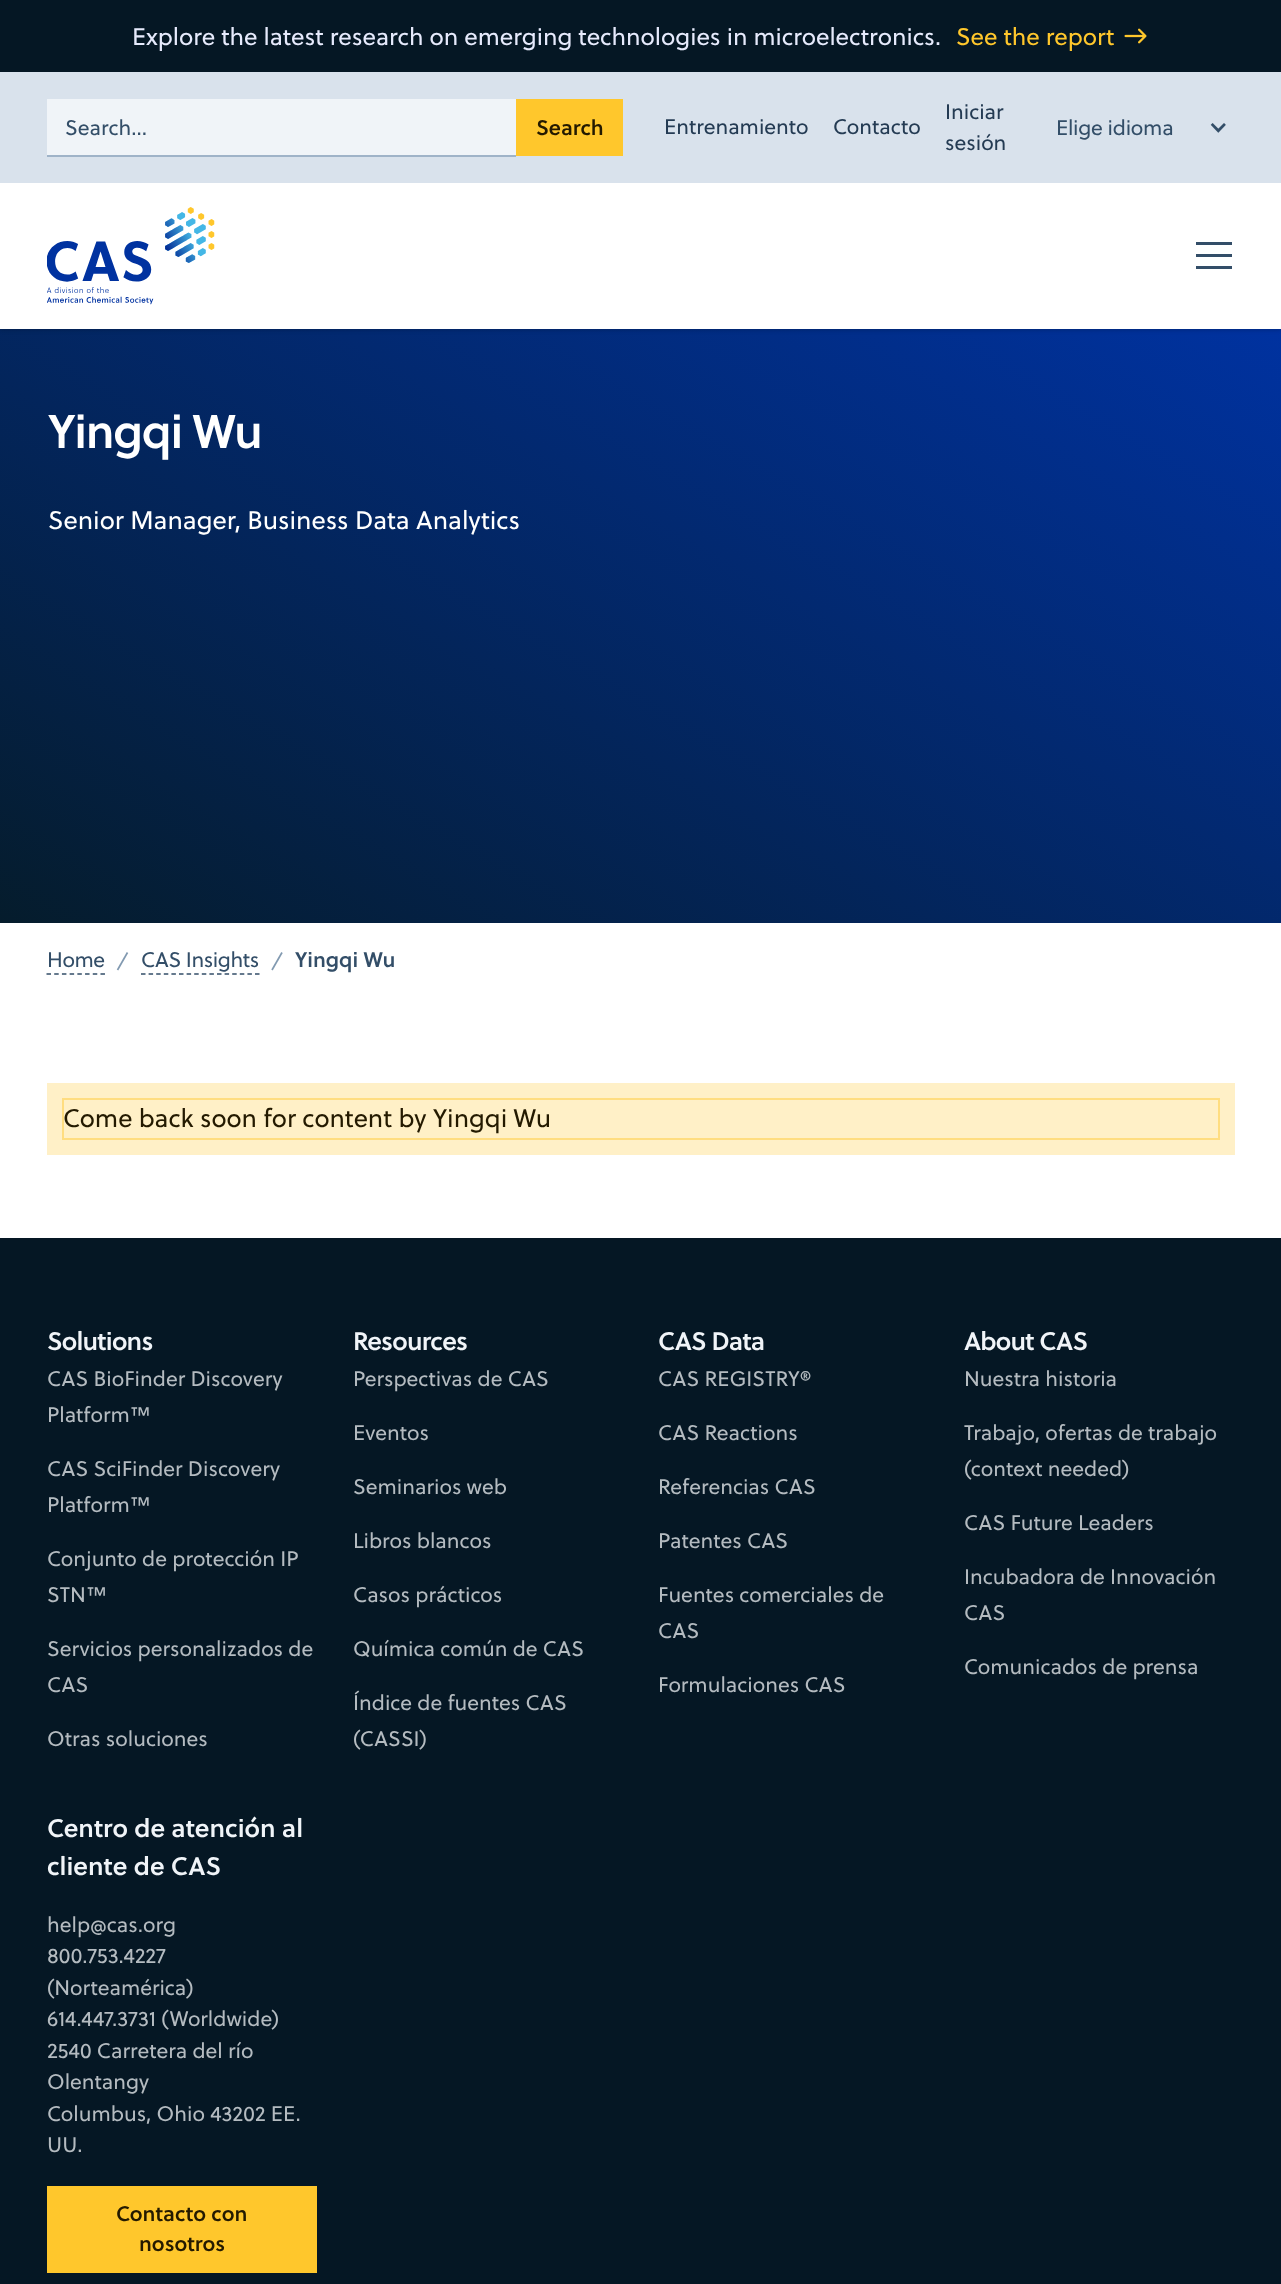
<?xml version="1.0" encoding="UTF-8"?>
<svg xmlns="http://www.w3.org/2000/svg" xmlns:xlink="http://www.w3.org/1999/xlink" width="1281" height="2284">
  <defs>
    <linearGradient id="g1" gradientUnits="userSpaceOnUse" x1="352" y1="1126" x2="929" y2="125"><stop offset="0" stop-color="#051c2c" /><stop offset="1" stop-color="#0032a0" /></linearGradient>
  </defs>
  <rect width="100%" height="100%" fill="#ffffff" />
  <rect width="1281" height="72" fill="#051724" />
  <image x="1124" y="28" width="23" height="16" xlink:href="image1.png" />
  <rect y="329" width="1281" height="594" fill="url(#g1)" />
  <rect y="185" width="1281" height="145" fill="#000000" fill-opacity="0.2" filter="blur(2px)" />
  <rect y="72" width="1281" height="111" fill="#d9e2ec" />
  <rect x="47" y="99" width="469" height="56" fill="#f0f4f8" />
  <rect x="47" y="155" width="469" height="2" fill="#9fb3c8" />
  <rect x="516" y="99" width="107" height="57" fill="#ffc72c" />
  <image x="1210" y="123" width="16" height="10" xlink:href="image2.png" />
  <rect y="183" width="1281" height="146" fill="#ffffff" />
  <image x="47" y="207" width="168" height="98" xlink:href="image3.png" />
  <rect x="1196" y="242" width="36" height="3" fill="#334e68" />
  <rect x="1196" y="254" width="36" height="3" fill="#334e68" />
  <rect x="1196" y="266" width="36" height="3" fill="#334e68" />
  <path d="M 46.5 974 h 58.5" fill="none" stroke="#334e68" stroke-width="1.5" stroke-dasharray="4.5 3.21" />
  <path d="M 127.5 952.5 l -10 17.5" fill="none" stroke="#829ab1" stroke-width="1.7" />
  <path d="M 141 974 h 118.5" fill="none" stroke="#334e68" stroke-width="1.5" stroke-dasharray="4.5 3.1" />
  <path d="M 282 952.5 l -10 17.5" fill="none" stroke="#829ab1" stroke-width="1.7" />
  <rect x="47" y="1083" width="1188" height="72" fill="#fff0c7" />
  <rect x="63" y="1099" width="1156" height="40" fill="none" stroke="#ffdd80" stroke-width="2" />
  <rect y="1238" width="1281" height="1046" fill="#051724" />
  <rect x="47" y="2186" width="270" height="87" fill="#ffc72c" />
  <text x="132" y="45" style="font-family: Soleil; font-size: 24px; fill: #e6eafc">Explore the latest research on emerging technologies in microelectronics.</text>
  <text x="956" y="45" style="font-family: Soleil; font-size: 24px; fill: #ffc72c">See the report</text>
  <text x="65" y="135" style="font-family: Soleil; font-size: 21px; fill: #334e68">Search…</text>
  <text x="536" y="135" style="font-family: Soleil; font-size: 21px; font-weight: 600; fill: #241a00">Search</text>
  <text x="664" y="134" style="font-family: Soleil; font-size: 21px; fill: #243b53">Entrenamiento</text>
  <text x="833" y="134" style="font-family: Soleil; font-size: 21px; fill: #243b53">Contacto</text>
  <text x="945" y="119" style="font-family: Soleil; font-size: 21px; fill: #243b53">Iniciar</text>
  <text x="945" y="150" style="font-family: Soleil; font-size: 21px; fill: #243b53">sesión</text>
  <text x="1056" y="135" style="font-family: Soleil; font-size: 21px; letter-spacing: -0.25px; fill: #334e68">Elige idioma</text>
  <text x="48" y="448" style="font-family: Soleil; font-size: 47px; font-weight: 600; letter-spacing: -1.25px; fill: #ffffff">Yingqi Wu</text>
  <text x="48" y="529" style="font-family: Soleil; font-size: 25.4px; fill: #ffffff">Senior Manager, Business Data Analytics</text>
  <text x="47" y="967" style="font-family: Soleil; font-size: 21px; letter-spacing: -0.4px; fill: #334e68">Home</text>
  <text x="141" y="967" style="font-family: Soleil; font-size: 21px; letter-spacing: -0.4px; fill: #334e68">CAS Insights</text>
  <text x="295" y="967" style="font-family: Soleil; font-size: 21px; font-weight: 600; fill: #334e68">Yingqi Wu</text>
  <text x="63" y="1127" style="font-family: Soleil; font-size: 25.4px; fill: #241a00">Come back soon for content by</text>
  <text x="433" y="1127" style="font-family: Soleil; font-size: 25.4px; fill: #241a00">Yingqi Wu</text>
  <text x="47" y="1350" style="font-family: Soleil; font-size: 25.4px; font-weight: 600; letter-spacing: -0.75px; fill: #f0f4f8">Solutions</text>
  <text x="47" y="1386" style="font-family: Soleil; font-size: 21px; fill: #b4bbc0">CAS BioFinder Discovery</text>
  <text x="47" y="1422" style="font-family: Soleil; font-size: 21px; fill: #b4bbc0">Platform™</text>
  <text x="47" y="1476" style="font-family: Soleil; font-size: 21px; fill: #b4bbc0">CAS SciFinder Discovery</text>
  <text x="47" y="1512" style="font-family: Soleil; font-size: 21px; fill: #b4bbc0">Platform™</text>
  <text x="47" y="1566" style="font-family: Soleil; font-size: 21px; fill: #b4bbc0">Conjunto de protección IP</text>
  <text x="47" y="1602" style="font-family: Soleil; font-size: 21px; fill: #b4bbc0">STN™</text>
  <text x="47" y="1656" style="font-family: Soleil; font-size: 21px; fill: #b4bbc0">Servicios personalizados de</text>
  <text x="47" y="1692" style="font-family: Soleil; font-size: 21px; fill: #b4bbc0">CAS</text>
  <text x="47" y="1746" style="font-family: Soleil; font-size: 21px; fill: #b4bbc0">Otras soluciones</text>
  <text x="353" y="1350" style="font-family: Soleil; font-size: 25.4px; font-weight: 600; letter-spacing: -0.75px; fill: #f0f4f8">Resources</text>
  <text x="353" y="1386" style="font-family: Soleil; font-size: 21px; fill: #b4bbc0">Perspectivas de CAS</text>
  <text x="353" y="1440" style="font-family: Soleil; font-size: 21px; fill: #b4bbc0">Eventos</text>
  <text x="353" y="1494" style="font-family: Soleil; font-size: 21px; fill: #b4bbc0">Seminarios web</text>
  <text x="353" y="1548" style="font-family: Soleil; font-size: 21px; fill: #b4bbc0">Libros blancos</text>
  <text x="353" y="1602" style="font-family: Soleil; font-size: 21px; fill: #b4bbc0">Casos prácticos</text>
  <text x="353" y="1656" style="font-family: Soleil; font-size: 21px; fill: #b4bbc0">Química común de CAS</text>
  <text x="353" y="1710" style="font-family: Soleil; font-size: 21px; fill: #b4bbc0">Índice de fuentes CAS</text>
  <text x="353" y="1746" style="font-family: Soleil; font-size: 21px; fill: #b4bbc0">(CASSI)</text>
  <text x="658" y="1350" style="font-family: Soleil; font-size: 25.4px; font-weight: 600; letter-spacing: -0.75px; fill: #f0f4f8">CAS Data</text>
  <text x="658" y="1386" style="font-family: Soleil; font-size: 21px; fill: #b4bbc0">CAS REGISTRY®</text>
  <text x="658" y="1440" style="font-family: Soleil; font-size: 21px; fill: #b4bbc0">CAS Reactions</text>
  <text x="658" y="1494" style="font-family: Soleil; font-size: 21px; fill: #b4bbc0">Referencias CAS</text>
  <text x="658" y="1548" style="font-family: Soleil; font-size: 21px; fill: #b4bbc0">Patentes CAS</text>
  <text x="658" y="1602" style="font-family: Soleil; font-size: 21px; fill: #b4bbc0">Fuentes comerciales de</text>
  <text x="658" y="1638" style="font-family: Soleil; font-size: 21px; fill: #b4bbc0">CAS</text>
  <text x="658" y="1692" style="font-family: Soleil; font-size: 21px; fill: #b4bbc0">Formulaciones CAS</text>
  <text x="964" y="1350" style="font-family: Soleil; font-size: 25.4px; font-weight: 600; letter-spacing: -0.75px; fill: #f0f4f8">About CAS</text>
  <text x="964" y="1386" style="font-family: Soleil; font-size: 21px; fill: #b4bbc0">Nuestra historia</text>
  <text x="964" y="1440" style="font-family: Soleil; font-size: 21px; fill: #b4bbc0">Trabajo, ofertas de trabajo</text>
  <text x="964" y="1476" style="font-family: Soleil; font-size: 21px; fill: #b4bbc0">(context needed)</text>
  <text x="964" y="1530" style="font-family: Soleil; font-size: 21px; fill: #b4bbc0">CAS Future Leaders</text>
  <text x="964" y="1584" style="font-family: Soleil; font-size: 21px; fill: #b4bbc0">Incubadora de Innovación</text>
  <text x="964" y="1620" style="font-family: Soleil; font-size: 21px; fill: #b4bbc0">CAS</text>
  <text x="964" y="1674" style="font-family: Soleil; font-size: 21px; fill: #b4bbc0">Comunicados de prensa</text>
  <text x="47" y="1837" style="font-family: Soleil; font-size: 25.4px; font-weight: 600; fill: #f0f4f8">Centro de atención al</text>
  <text x="47" y="1875" style="font-family: Soleil; font-size: 25.4px; font-weight: 600; fill: #f0f4f8">cliente de CAS</text>
  <text x="47" y="1932" style="font-family: Soleil; font-size: 21px; fill: #b4bbc0">help@cas.org</text>
  <text x="47" y="1963" style="font-family: Soleil; font-size: 21px; fill: #b4bbc0">800.753.4227</text>
  <text x="47" y="1995" style="font-family: Soleil; font-size: 21px; fill: #b4bbc0">(Norteamérica)</text>
  <text x="47" y="2026" style="font-family: Soleil; font-size: 21px; fill: #b4bbc0">614.447.3731 (Worldwide)</text>
  <text x="47" y="2058" style="font-family: Soleil; font-size: 21px; fill: #b4bbc0">2540 Carretera del río</text>
  <text x="47" y="2089" style="font-family: Soleil; font-size: 21px; fill: #b4bbc0">Olentangy</text>
  <text x="47" y="2121" style="font-family: Soleil; font-size: 21px; fill: #b4bbc0">Columbus, Ohio 43202 EE.</text>
  <text x="47" y="2152" style="font-family: Soleil; font-size: 21px; fill: #b4bbc0">UU.</text>
  <text x="116" y="2221" style="font-family: Soleil; font-size: 21px; font-weight: 600; fill: #241a00">Contacto con</text>
  <text x="139" y="2251" style="font-family: Soleil; font-size: 21px; font-weight: 600; fill: #241a00">nosotros</text>
</svg>
